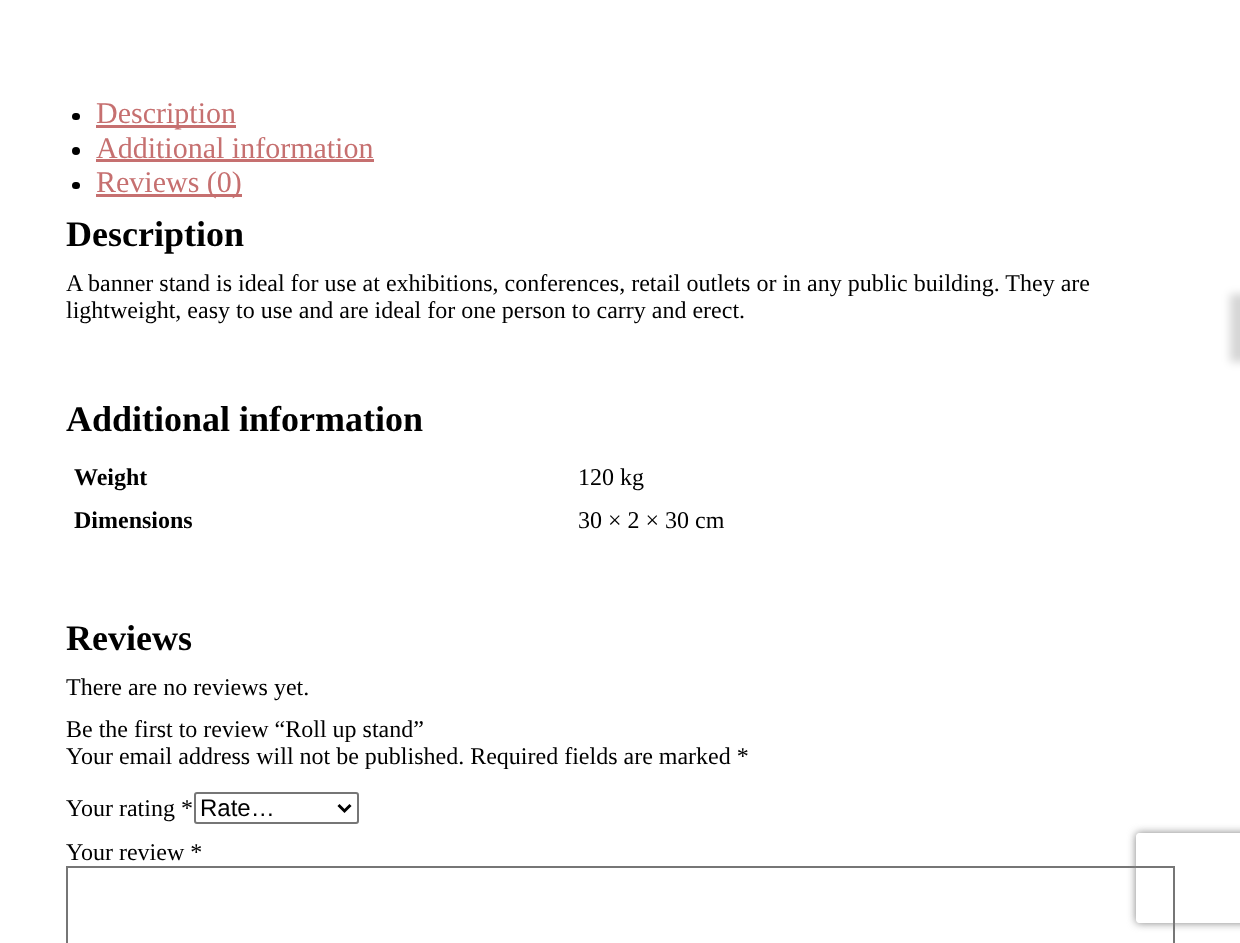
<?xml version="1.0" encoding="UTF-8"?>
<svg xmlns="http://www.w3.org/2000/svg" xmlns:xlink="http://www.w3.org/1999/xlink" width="1240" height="943">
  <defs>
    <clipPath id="clip1"><path d="M 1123 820 h 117 v 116 h -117 z m 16 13 h 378 c 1.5 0 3 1.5 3 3 v 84 c 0 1.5 -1.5 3 -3 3 h -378 c -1.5 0 -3 -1.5 -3 -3 v -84 c 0 -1.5 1.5 -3 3 -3 z" clip-rule="evenodd" /></clipPath>
  </defs>
  <rect width="100%" height="100%" fill="#ffffff" />
  <rect x="72" y="113" width="8" height="7" rx="3.5" fill="#000000" />
  <rect x="96" y="125" width="140" height="3" fill="#c67070" />
  <circle cx="76" cy="151" r="4" fill="#000000" />
  <rect x="96" y="159" width="278" height="3" fill="#c67070" />
  <rect x="72" y="182" width="8" height="7" rx="3.5" fill="#000000" />
  <rect x="96" y="194" width="146" height="3" fill="#c67070" />
  <rect x="195" y="793" width="163" height="30" rx="2" fill="none" stroke="#767676" stroke-width="2" />
  <path d="M 338.5 805 l 6 6 l 6 -6" fill="none" stroke="#000000" stroke-width="3" />
  <rect x="67" y="867" width="1107" height="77" fill="none" stroke="#767676" stroke-width="2" />
  <rect x="1230" y="294" width="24" height="68" fill="#000000" fill-opacity="0.16" filter="blur(4.5px)" />
  <g clip-path="url(#clip1)">
    <rect x="1136" y="833" width="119" height="90" rx="3" fill="#808080" filter="blur(4px)" />
  </g>
  <text x="96" y="123" style="font-family: Liberation Serif; font-size: 30px; fill: #c67070">Description</text>
  <text x="96" y="158" style="font-family: Liberation Serif; font-size: 30px; fill: #c67070">Additional information</text>
  <text x="96" y="192" style="font-family: Liberation Serif; font-size: 30px; fill: #c67070">Reviews (0)</text>
  <text x="66" y="246" style="font-family: Liberation Serif; font-size: 36px; font-weight: bold; fill: #000000">Description</text>
  <text x="66" y="291" style="font-family: Liberation Serif; font-size: 24px; fill: #000000">A banner stand is ideal for use at exhibitions, conferences, retail outlets or in any public building. They are</text>
  <text x="66" y="318" style="font-family: Liberation Serif; font-size: 24px; fill: #000000">lightweight, easy to use and are ideal for one person to carry and erect.</text>
  <text x="66" y="431" style="font-family: Liberation Serif; font-size: 36px; font-weight: bold; fill: #000000">Additional information</text>
  <text x="74" y="485" style="font-family: Liberation Serif; font-size: 24px; font-weight: bold; fill: #000000">Weight</text>
  <text x="578" y="485" style="font-family: Liberation Serif; font-size: 24px; fill: #000000">120 kg</text>
  <text x="74" y="528" style="font-family: Liberation Serif; font-size: 24px; font-weight: bold; fill: #000000">Dimensions</text>
  <text x="578" y="528" style="font-family: Liberation Serif; font-size: 24px; fill: #000000">30 × 2 × 30 cm</text>
  <text x="66" y="650" style="font-family: Liberation Serif; font-size: 36px; font-weight: bold; fill: #000000">Reviews</text>
  <text x="66" y="695" style="font-family: Liberation Serif; font-size: 24px; fill: #000000">There are no reviews yet.</text>
  <text x="66" y="737" style="font-family: Liberation Serif; font-size: 24px; fill: #000000">Be the first to review “Roll up stand”</text>
  <text x="66" y="764" style="font-family: Liberation Serif; font-size: 24px; fill: #000000">Your email address will not be published. Required fields are marked *</text>
  <text x="66" y="816" style="font-family: Liberation Serif; font-size: 24px; fill: #000000">Your rating *</text>
  <text x="200" y="816" style="font-family: Liberation Sans; font-size: 24px; fill: #000000">Rate…</text>
  <text x="66" y="860" style="font-family: Liberation Serif; font-size: 24px; fill: #000000">Your review *</text>
</svg>
